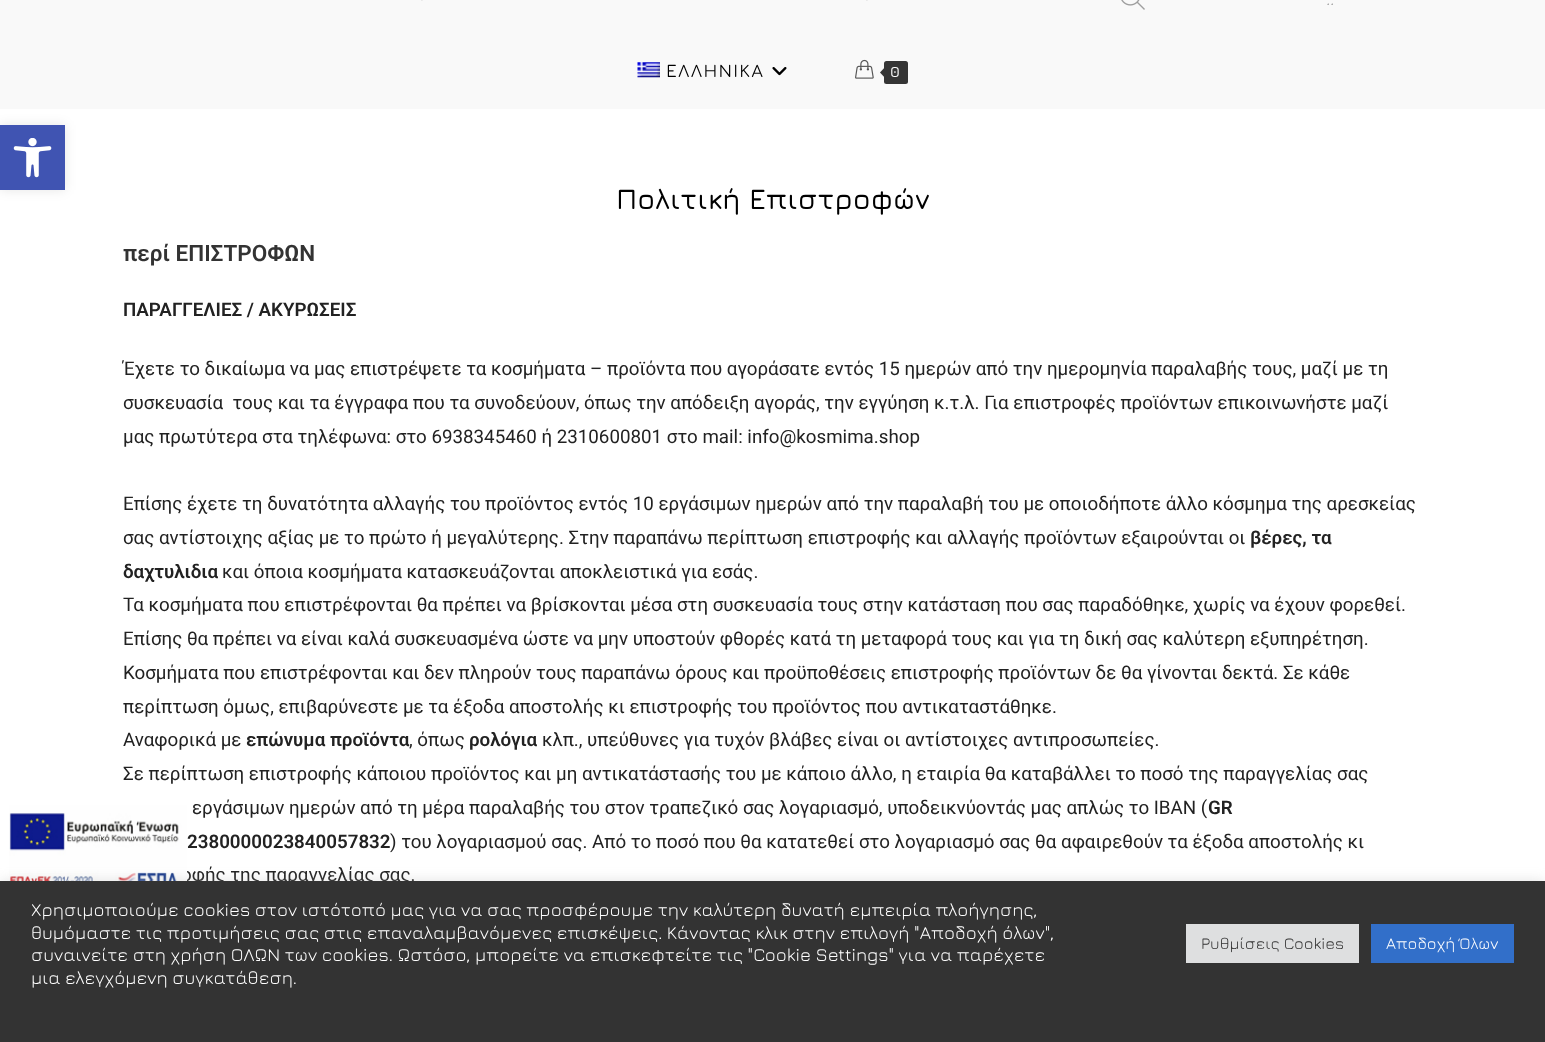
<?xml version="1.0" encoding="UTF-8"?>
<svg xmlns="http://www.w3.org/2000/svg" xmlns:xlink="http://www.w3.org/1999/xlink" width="1545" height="1042">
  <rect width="100%" height="100%" fill="#ffffff" />
  <rect width="1545" height="109" fill="#f9f9f9" />
  <rect y="125" width="65" height="65" fill="#000000" fill-opacity="0.1" filter="blur(6px)" />
  <rect y="125" width="65" height="65" fill="#4054b2" />
  <image x="13" y="138" width="39" height="40" xlink:href="image1.png" />
  <image x="421" y="0" width="2" height="1" xlink:href="image2.png" />
  <image x="866" y="0" width="2" height="1" xlink:href="image2.png" />
  <image x="1121" y="0" width="24" height="10" xlink:href="image3.png" />
  <image x="637" y="62" width="23" height="16" xlink:href="image4.png" />
  <image x="772" y="67" width="15" height="9" xlink:href="image5.png" />
  <image x="855" y="59" width="19" height="20" xlink:href="image6.png" />
  <rect x="884" y="61" width="24" height="23" rx="2.5" fill="#353535" />
  <path d="M 886 66 v 13 l -6 -6.5 z" fill="#353535" />
  <text x="1326" y="5" style="font-family: Jura; font-size: 18px; font-style: italic; fill: #999999">..</text>
  <text x="666" y="77" style="font-family: Jura; font-size: 18.75px; font-weight: 500; letter-spacing: 1.25px; fill: #000000">ΕΛΛΗΝΙΚΑ</text>
  <text x="890" y="77" style="font-family: Jura; font-size: 15px; font-weight: 600; letter-spacing: 1.25px; fill: #ffffff">0</text>
  <text x="616" y="209" style="font-family: Jura; font-size: 28.75px; font-weight: 600; fill: #000000">Πολιτική Επιστροφών</text>
  <text x="123" y="261" style="font-family: Roboto; font-size: 22.5px; font-weight: 600; fill: #333333">περί ΕΠΙΣΤΡΟΦΩΝ</text>
  <text x="123" y="316" style="font-family: Roboto; font-size: 18.75px; font-weight: 600; fill: #222222">ΠΑΡΑΓΓΕΛΙΕΣ / ΑΚΥΡΩΣΕΙΣ</text>
  <text x="123" y="375" style="font-family: Roboto; font-size: 18.75px; fill: #222222">Έχετε το δικαίωμα να μας επιστρέψετε τα κοσμήματα – προϊόντα που αγοράσατε εντός 15 ημερών από την ημερομηνία παραλαβής τους, μαζί με τη</text>
  <text x="123" y="409" style="font-family: Roboto; font-size: 18.75px; fill: #222222" xml:space="preserve">συσκευασία  τους και τα έγγραφα που τα συνοδεύουν, όπως την απόδειξη αγοράς, την εγγύηση κ.τ.λ. Για επιστροφές προϊόντων επικοινωνήστε μαζί</text>
  <text x="123" y="443" style="font-family: Roboto; font-size: 18.75px; fill: #222222">μας πρωτύτερα στα τηλέφωνα: στο 6938345460 ή 2310600801 στο mail: info@kosmima.shop</text>
  <text x="123" y="510" style="font-family: Roboto; font-size: 18.75px; fill: #222222">Επίσης έχετε τη δυνατότητα αλλαγής του προϊόντος εντός 10 εργάσιμων ημερών από την παραλαβή του με οποιοδήποτε άλλο κόσμημα της αρεσκείας</text>
  <text x="123" y="544" style="font-family: Roboto; font-size: 18.75px; fill: #222222">σας αντίστοιχης αξίας με το πρώτο ή μεγαλύτερης. Στην παραπάνω περίπτωση επιστροφής και αλλαγής προϊόντων εξαιρούνται οι</text>
  <text x="1250" y="544" style="font-family: Roboto; font-size: 18.75px; font-weight: 600; fill: #222222">βέρες, τα</text>
  <text x="123" y="578" style="font-family: Roboto; font-size: 18.75px; font-weight: 600; fill: #222222">δαχτυλιδια</text>
  <text x="222" y="578" style="font-family: Roboto; font-size: 18.75px; fill: #222222">και όποια κοσμήματα κατασκευάζονται αποκλειστικά για εσάς.</text>
  <text x="123" y="611" style="font-family: Roboto; font-size: 18.75px; fill: #222222">Τα κοσμήματα που επιστρέφονται θα πρέπει να βρίσκονται μέσα στη συσκευασία τους στην κατάσταση που σας παραδόθηκε, χωρίς να έχουν φορεθεί.</text>
  <text x="123" y="645" style="font-family: Roboto; font-size: 18.75px; fill: #222222">Επίσης θα πρέπει να είναι καλά συσκευασμένα ώστε να μην υποστούν φθορές κατά τη μεταφορά τους και για τη δική σας καλύτερη εξυπηρέτηση.</text>
  <text x="123" y="679" style="font-family: Roboto; font-size: 18.75px; fill: #222222">Κοσμήματα που επιστρέφονται και δεν πληρούν τους παραπάνω όρους και προϋποθέσεις επιστροφής προϊόντων δε θα γίνονται δεκτά. Σε κάθε</text>
  <text x="123" y="713" style="font-family: Roboto; font-size: 18.75px; fill: #222222">περίπτωση όμως, επιβαρύνεστε με τα έξοδα αποστολής κι επιστροφής του προϊόντος που αντικαταστάθηκε.</text>
  <text x="123" y="746" style="font-family: Roboto; font-size: 18.75px; fill: #222222">Αναφορικά με</text>
  <text x="246" y="746" style="font-family: Roboto; font-size: 18.75px; font-weight: 600; fill: #222222">επώνυμα προϊόντα</text>
  <text x="409" y="746" style="font-family: Roboto; font-size: 18.75px; fill: #222222">, όπως</text>
  <text x="469" y="746" style="font-family: Roboto; font-size: 18.75px; font-weight: 600; fill: #222222">ρολόγια</text>
  <text x="542" y="746" style="font-family: Roboto; font-size: 18.75px; fill: #222222">κλπ., υπεύθυνες για τυχόν βλάβες είναι οι αντίστοιχες αντιπροσωπείες.</text>
  <text x="123" y="780" style="font-family: Roboto; font-size: 18.75px; fill: #222222">Σε περίπτωση επιστροφής κάποιου προϊόντος και μη αντικατάστασής του με κάποιο άλλο, η εταιρία θα καταβάλλει το ποσό της παραγγελίας σας</text>
  <text x="192" y="814" style="font-family: Roboto; font-size: 18.75px; fill: #222222">εργάσιμων ημερών από τη μέρα παραλαβής του στον τραπεζικό σας λογαριασμό, υποδεικνύοντάς μας απλώς το IBAN (</text>
  <text x="1208" y="814" style="font-family: Roboto; font-size: 18.75px; font-weight: 600; fill: #222222">GR</text>
  <text x="187" y="848" style="font-family: Roboto; font-size: 18.75px; font-weight: 600; fill: #222222">2380000023840057832</text>
  <text x="390" y="848" style="font-family: Roboto; font-size: 18.75px; fill: #222222">) του λογαριασμού σας. Από το ποσό που θα κατατεθεί στο λογαριασμό σας θα αφαιρεθούν τα έξοδα αποστολής κι</text>
  <text x="181" y="881" style="font-family: Roboto; font-size: 18.75px; fill: #222222">οφής της παραγγελίας σας.</text>
  <image x="9" y="805" width="178" height="76" xlink:href="image7.png" />
  <rect y="880" width="1545" height="161" fill="#acabab" fill-opacity="0.3" filter="blur(6px)" />
  <rect y="881" width="1545" height="161" fill="#333333" />
  <text x="31" y="916" style="font-family: Jura; font-size: 18.33px; fill: #ffffff">Χρησιμοποιούμε cookies στον ιστότοπό μας για να σας προσφέρουμε την καλύτερη δυνατή εμπειρία πλοήγησης,</text>
  <text x="31" y="939" style="font-family: Jura; font-size: 18.33px; fill: #ffffff">θυμόμαστε τις προτιμήσεις σας στις επαναλαμβανόμενες επισκέψεις. Κάνοντας κλικ στην επιλογή "Αποδοχή όλων",</text>
  <text x="31" y="961" style="font-family: Jura; font-size: 18.33px; fill: #ffffff">συναινείτε στη χρήση ΟΛΩΝ των cookies. Ωστόσο, μπορείτε να επισκεφτείτε τις "Cookie Settings" για να παρέχετε</text>
  <text x="31" y="984" style="font-family: Jura; font-size: 18.33px; fill: #ffffff">μια ελεγχόμενη συγκατάθεση.</text>
  <rect x="1186" y="924" width="173" height="39" fill="#dedfe0" />
  <text x="1201" y="949" style="font-family: Jura; font-size: 16.25px; fill: #333333">Ρυθμίσεις Cookies</text>
  <rect x="1371" y="924" width="143" height="39" fill="#326fc9" />
  <text x="1386" y="949" style="font-family: Jura; font-size: 16.25px; fill: #ffffff">Αποδοχή Όλων</text>
</svg>
